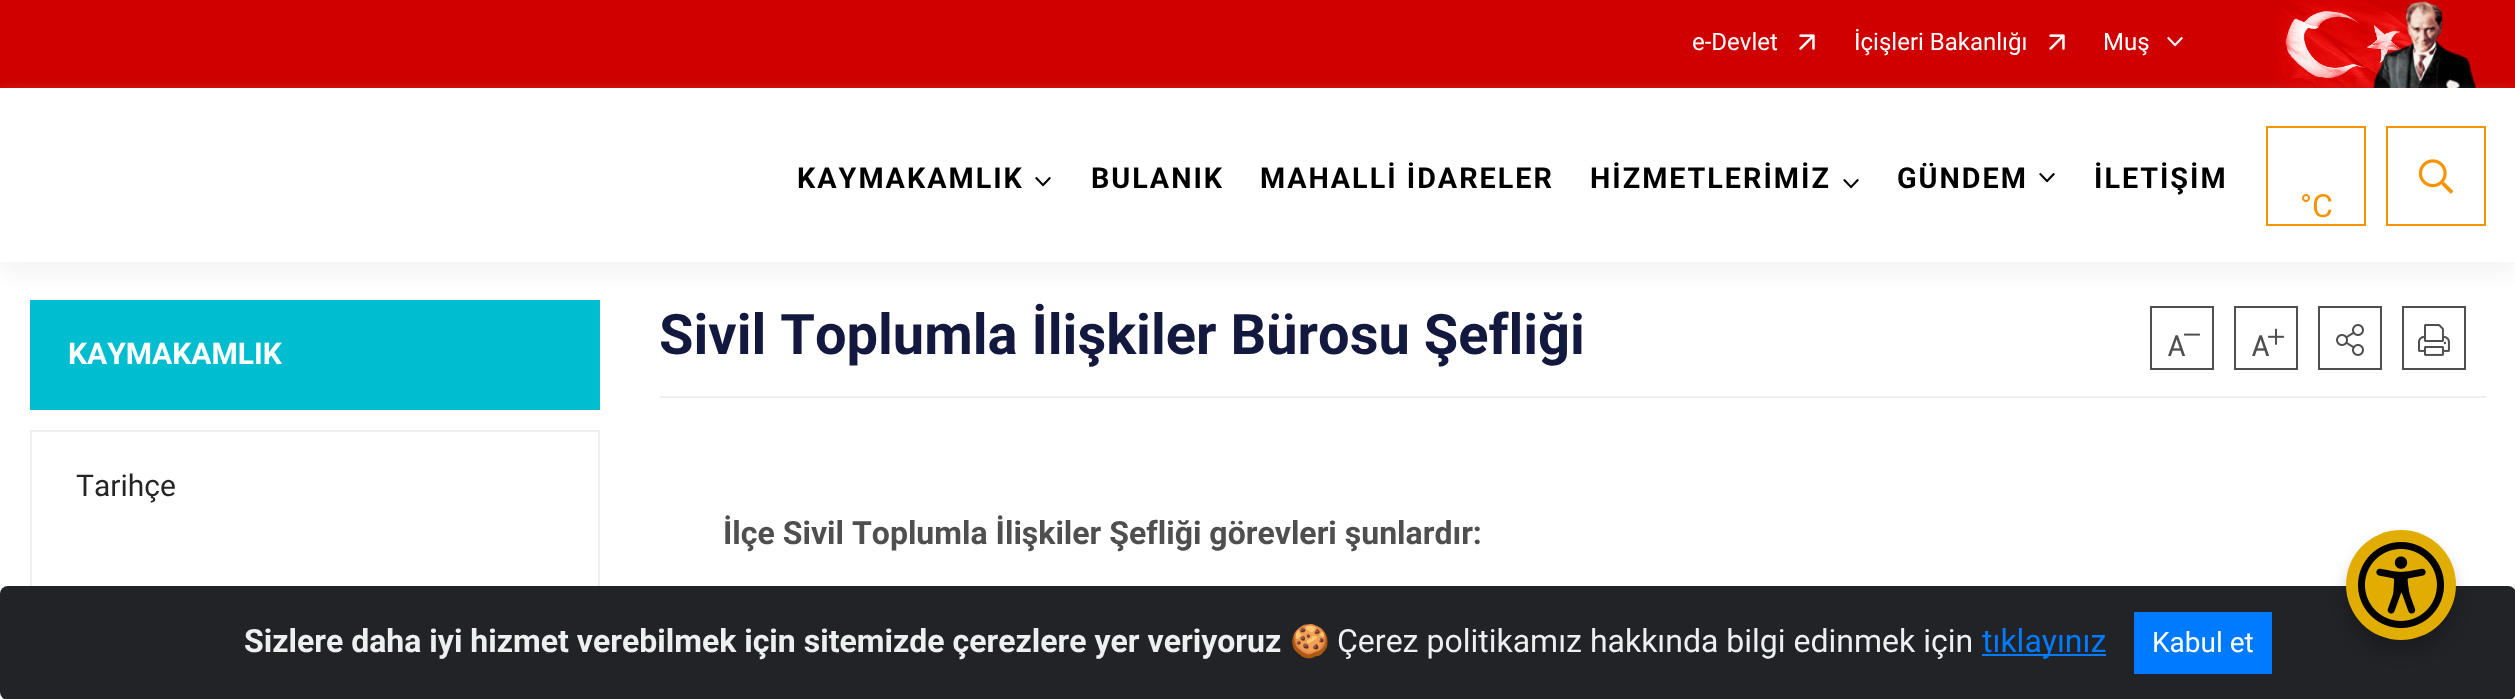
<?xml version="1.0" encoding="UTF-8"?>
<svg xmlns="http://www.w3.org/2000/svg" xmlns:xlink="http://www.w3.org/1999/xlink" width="2515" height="699">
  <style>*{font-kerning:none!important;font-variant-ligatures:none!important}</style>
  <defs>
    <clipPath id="clip1"><path d="M 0 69 h 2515 v 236 h -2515 z m 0 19 h 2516 v 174 h -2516 z" clip-rule="evenodd" /></clipPath>
  </defs>
  <rect width="100%" height="100%" fill="#ffffff" />
  <rect width="2515" height="88" fill="#ce0000" />
  <image x="1799" y="34" width="16" height="16" xlink:href="image1.png" />
  <image x="2049" y="34" width="16" height="16" xlink:href="image1.png" />
  <image x="2167" y="37" width="16" height="10" xlink:href="image2.png" />
  <image x="2272" y="0" width="205" height="88" xlink:href="image3.png" />
  <rect x="30" y="300" width="570" height="110" fill="#00bed0" />
  <g clip-path="url(#clip1)">
    <rect y="100" width="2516" height="174" fill="#eeeeee" fill-opacity="0.62" filter="blur(10px)" />
  </g>
  <image x="1035" y="177" width="16" height="10" xlink:href="image4.png" />
  <image x="1843" y="179" width="16" height="10" xlink:href="image4.png" />
  <image x="2039" y="173" width="16" height="10" xlink:href="image4.png" />
  <rect x="2267" y="127" width="98" height="98" fill="none" stroke="#f59300" stroke-width="2" />
  <rect x="2387" y="127" width="98" height="98" fill="none" stroke="#f59300" stroke-width="2" />
  <image x="2418" y="159" width="36" height="35" xlink:href="image5.png" />
  <rect x="31" y="431" width="568" height="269" fill="none" stroke="#eeeeee" stroke-width="2" />
  <rect x="660" y="396" width="1826" height="2" fill="#eeeeee" />
  <rect x="2151" y="307" width="62" height="62" fill="none" stroke="#4f4f4f" stroke-width="2" />
  <image x="2168" y="333" width="32" height="23" xlink:href="image6.png" />
  <rect x="2235" y="307" width="62" height="62" fill="none" stroke="#4f4f4f" stroke-width="2" />
  <image x="2252" y="328" width="32" height="28" xlink:href="image7.png" />
  <rect x="2319" y="307" width="62" height="62" fill="none" stroke="#4f4f4f" stroke-width="2" />
  <image x="2336" y="324" width="28" height="32" xlink:href="image8.png" />
  <rect x="2403" y="307" width="62" height="62" fill="none" stroke="#4f4f4f" stroke-width="2" />
  <image x="2418" y="324" width="32" height="32" xlink:href="image9.png" />
  <rect y="586" width="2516" height="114" rx="8" fill="#212327" />
  <rect x="1982" y="654" width="124" height="2" fill="#007bff" />
  <rect x="2134" y="612" width="138" height="62" fill="#007bff" />
  <rect x="2346" y="542" width="110" height="110" rx="55" fill="#000000" fill-opacity="0.2" filter="blur(8px)" />
  <circle cx="2401" cy="585" r="55" fill="#e1ad01" />
  <image x="2358" y="542" width="86" height="86" xlink:href="image10.png" />
  <text x="1692" y="50" style="font-family: Roboto; font-size: 24px; fill: #ffffff">e-Devlet</text>
  <text x="1854" y="50" style="font-family: Roboto; font-size: 24px; fill: #ffffff">İçişleri Bakanlığı</text>
  <text x="2103" y="50" style="font-family: Roboto; font-size: 24px; fill: #ffffff">Muş</text>
  <text x="797" y="188" style="font-family: Roboto; font-size: 28.75px; font-weight: bold; letter-spacing: 2px; fill: #000000">KAYMAKAMLIK</text>
  <text x="1091" y="188" style="font-family: Roboto; font-size: 28.75px; font-weight: bold; letter-spacing: 2px; fill: #000000">BULANIK</text>
  <text x="1260" y="188" style="font-family: Roboto; font-size: 28.75px; font-weight: bold; letter-spacing: 2px; fill: #000000">MAHALLİ İDARELER</text>
  <text x="1590" y="188" style="font-family: Roboto; font-size: 28.75px; font-weight: bold; letter-spacing: 2px; fill: #000000">HİZMETLERİMİZ</text>
  <text x="1897" y="188" style="font-family: Roboto; font-size: 28.75px; font-weight: bold; letter-spacing: 2px; fill: #000000">GÜNDEM</text>
  <text x="2094" y="188" style="font-family: Roboto; font-size: 28.75px; font-weight: bold; letter-spacing: 2px; fill: #000000">İLETİŞİM</text>
  <text x="2300" y="217" style="font-family: Roboto; font-size: 32px; fill: #f59300">°C</text>
  <text x="68" y="364" style="font-family: Roboto; font-size: 30px; font-weight: bold; fill: #ffffff">KAYMAKAMLIK</text>
  <text x="76" y="496" style="font-family: Roboto; font-size: 30px; fill: #252525">Tarihçe</text>
  <text x="659" y="354" style="font-family: Roboto; font-size: 56px; font-weight: bold; fill: #13183e">Sivil Toplumla İlişkiler Bürosu Şefliği</text>
  <text x="723" y="544" style="font-family: Roboto; font-size: 32px; font-weight: bold; fill: #4f4f4f">İlçe Sivil Toplumla İlişkiler Şefliği görevleri şunlardır:</text>
  <text x="244" y="652" style="font-family: Roboto; font-size: 32px; font-weight: bold; fill: #ecf0f1">Sizlere daha iyi hizmet verebilmek için sitemizde çerezlere yer veriyoruz</text>
  <text x="1290" y="652" style="font-family: Noto Color Emoji; font-size: 32px; fill: #ecf0f1">🍪</text>
  <text x="1337" y="652" style="font-family: Roboto; font-size: 32px; fill: #ecf0f1">Çerez politikamız hakkında bilgi edinmek için</text>
  <text x="1982" y="652" style="font-family: Roboto; font-size: 32px; fill: #007bff">tıklayınız</text>
  <text x="2152" y="652" style="font-family: Roboto; font-size: 28px; fill: #ffffff">Kabul et</text>
</svg>
